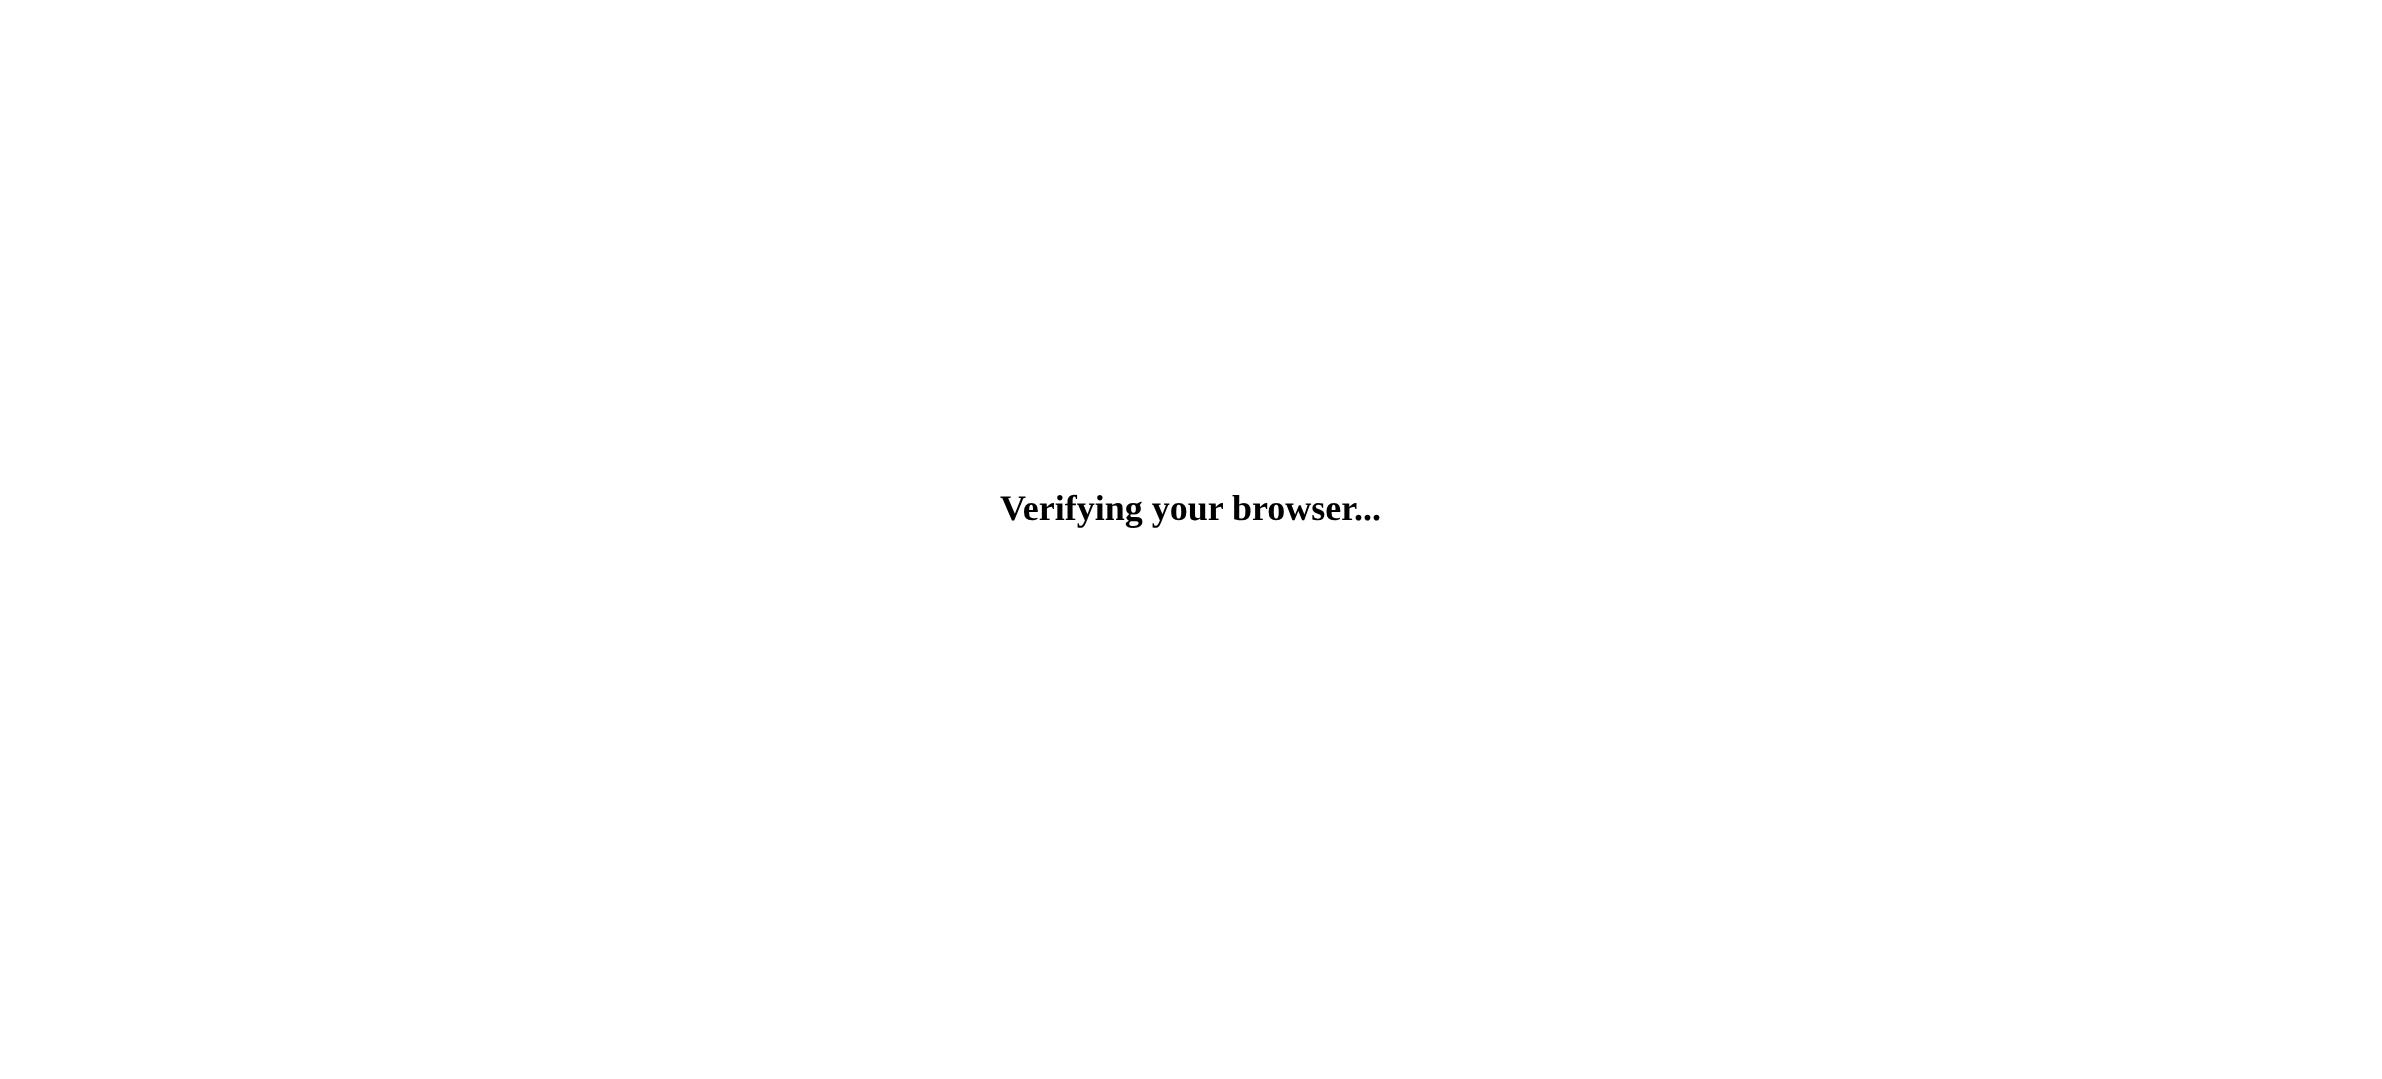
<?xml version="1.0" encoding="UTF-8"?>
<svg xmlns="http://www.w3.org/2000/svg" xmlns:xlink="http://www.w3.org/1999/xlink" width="2382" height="1079">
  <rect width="100%" height="100%" fill="#ffffff" />
  <text x="1000" y="520" style="font-family: Liberation Serif; font-size: 36px; font-weight: bold; fill: #000000">Verifying your browser...</text>
</svg>
